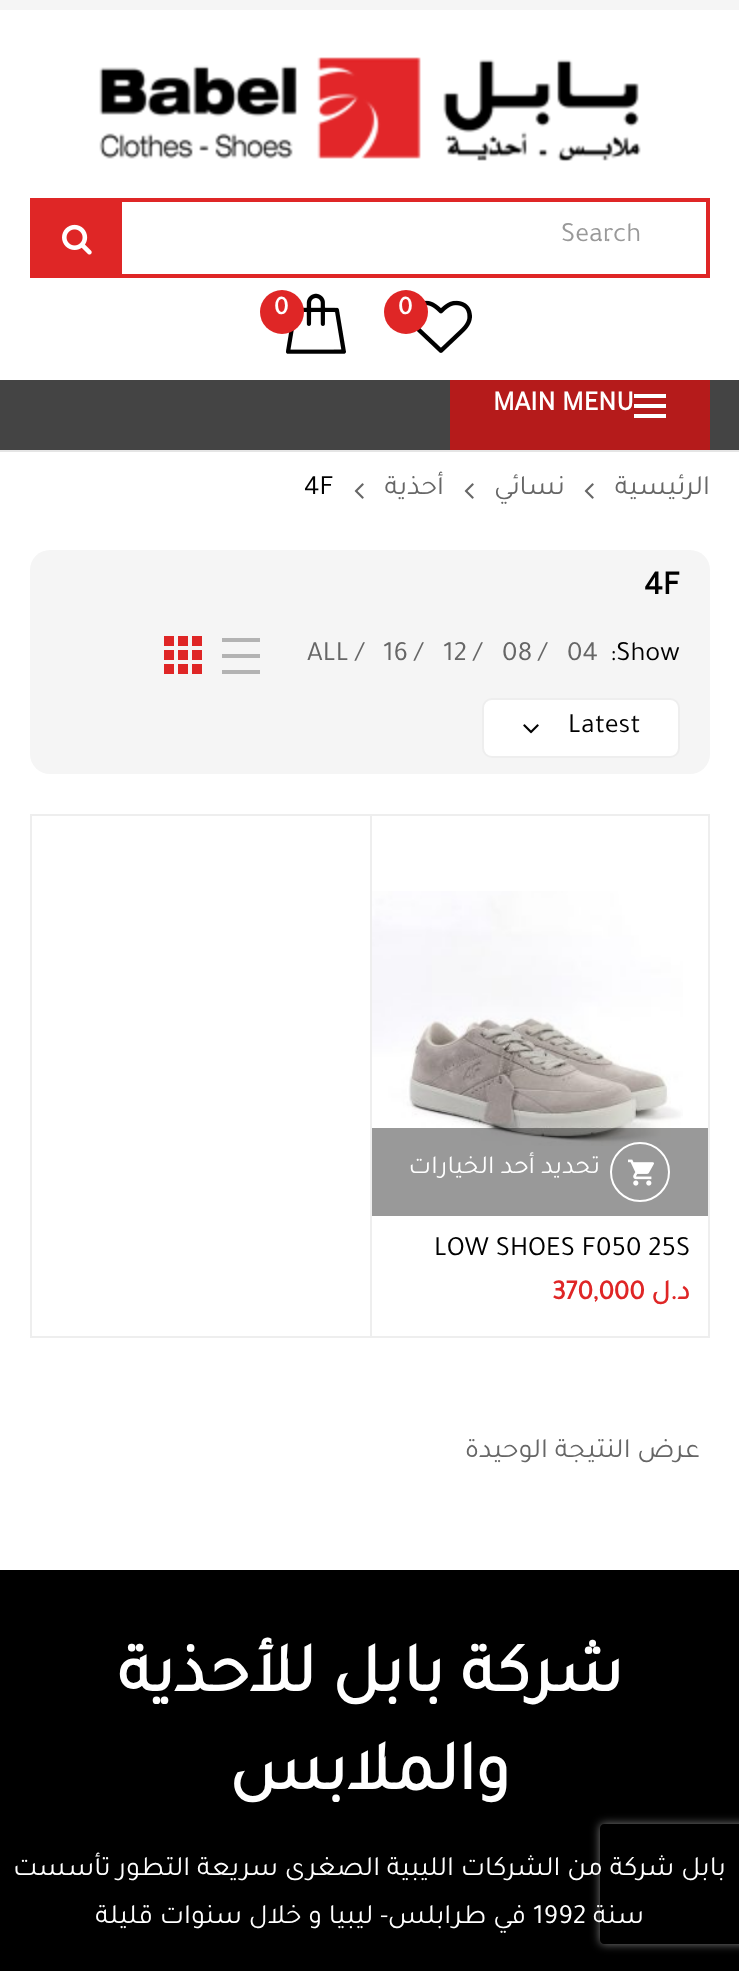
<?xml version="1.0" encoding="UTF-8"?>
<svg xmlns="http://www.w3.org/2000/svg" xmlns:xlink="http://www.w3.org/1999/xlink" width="739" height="1971">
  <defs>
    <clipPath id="clip1"><path d="M 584 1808 h 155 v 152 h -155 z m 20 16 h 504 c 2 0 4 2 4 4 v 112 c 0 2 -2 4 -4 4 h -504 c -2 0 -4 -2 -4 -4 v -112 c 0 -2 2 -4 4 -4 z" clip-rule="evenodd" /></clipPath>
  </defs>
  <rect width="100%" height="100%" fill="#ffffff" />
  <rect y="450" width="739" height="2" fill="#e5e5e5" />
  <rect width="739" height="10" fill="#f5f5f5" />
  <image x="99" y="57" width="542" height="105" xlink:href="image1.png" />
  <rect x="32" y="200" width="676" height="76" fill="none" stroke="#df2626" stroke-width="4" />
  <rect x="34" y="202" width="88" height="72" fill="#df2626" />
  <image x="62" y="224" width="30" height="31" xlink:href="image2.png" />
  <image x="417" y="300" width="55" height="53" xlink:href="image3.png" />
  <circle cx="406" cy="312" r="22" fill="#df2626" />
  <image x="286" y="293" width="60" height="61" xlink:href="image4.png" />
  <circle cx="282" cy="312" r="22" fill="#df2626" />
  <rect y="380" width="739" height="70" fill="#444444" />
  <rect x="450" y="380" width="260" height="70" fill="#b51b1b" />
  <rect x="634" y="394" width="32" height="4" fill="#ffffff" />
  <rect x="634" y="404" width="32" height="4" fill="#ffffff" />
  <rect x="634" y="414" width="32" height="4" fill="#ffffff" />
  <image x="584" y="483" width="10" height="16" xlink:href="image5.png" />
  <image x="464" y="483" width="10" height="16" xlink:href="image5.png" />
  <image x="354" y="483" width="10" height="16" xlink:href="image5.png" />
  <rect x="30" y="550" width="680" height="224" rx="20" fill="#f5f5f5" />
  <rect x="222" y="638" width="38" height="4" fill="#b3b3b3" />
  <rect x="222" y="654" width="38" height="4" fill="#b3b3b3" />
  <rect x="222" y="670" width="38" height="4" fill="#b3b3b3" />
  <rect x="192" y="636" width="10" height="10" fill="#df2626" />
  <rect x="178" y="636" width="10" height="10" fill="#df2626" />
  <rect x="164" y="636" width="10" height="10" fill="#df2626" />
  <rect x="192" y="650" width="10" height="10" fill="#df2626" />
  <rect x="178" y="650" width="10" height="10" fill="#df2626" />
  <rect x="164" y="650" width="10" height="10" fill="#df2626" />
  <rect x="192" y="664" width="10" height="10" fill="#df2626" />
  <rect x="178" y="664" width="10" height="10" fill="#df2626" />
  <rect x="164" y="664" width="10" height="10" fill="#df2626" />
  <rect x="483" y="699" width="196" height="58" rx="9" fill="#ffffff" stroke="#eeeeee" stroke-width="2" />
  <image x="523" y="724" width="16" height="10" xlink:href="image6.png" />
  <rect x="31" y="815" width="678" height="522" fill="none" stroke="#eeeeee" stroke-width="2" />
  <rect x="370" y="816" width="2" height="522" fill="#eeeeee" />
  <image x="372" y="891" width="311" height="255" xlink:href="image7.png" />
  <rect x="372" y="1128" width="336" height="88" fill="#000000" fill-opacity="0.4" />
  <circle cx="640" cy="1172" r="29" fill="none" stroke="#ffffff" stroke-width="2" />
  <image x="628" y="1159" width="26" height="27" xlink:href="image8.png" />
  <rect y="1570" width="739" height="401" fill="#000000" />
  <g clip-path="url(#clip1)">
    <rect x="600" y="1824" width="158" height="120" rx="4" fill="#808080" filter="blur(5px)" />
  </g>
  <text x="561" y="241" style="font-family: Tajawal; font-size: 28px; fill: #999999">Search</text>
  <text x="597" y="241" style="font-family: Tajawal; font-size: 28px; fill: #999999">..</text>
  <text x="398" y="314" style="font-family: Tajawal; font-size: 26px; font-weight: bold; fill: #ffffff">0</text>
  <text x="274" y="314" style="font-family: Tajawal; font-size: 26px; font-weight: bold; fill: #ffffff">0</text>
  <text x="493" y="410" style="font-family: Tajawal; font-size: 28px; font-weight: bold; fill: #ffffff">MAIN MENU</text>
  <text x="710" y="494" style="font-family: Tajawal; font-size: 28px; direction: rtl; fill: #666666">الرئيسية</text>
  <text x="565" y="494" style="font-family: Tajawal; font-size: 28px; direction: rtl; fill: #666666">نسائي</text>
  <text x="444" y="494" style="font-family: Tajawal; font-size: 28px; direction: rtl; fill: #666666">أحذية</text>
  <text x="304" y="494" style="font-family: Tajawal; font-size: 28px; fill: #000000">4F</text>
  <text x="644" y="594" style="font-family: Tajawal; font-size: 34px; font-weight: bold; fill: #000000">4F</text>
  <text x="610" y="660" style="font-family: Tajawal; font-size: 28px; fill: #000000">:Show</text>
  <text x="567" y="660" style="font-family: Tajawal; font-size: 28px; fill: #666666">04</text>
  <text x="538" y="660" style="font-family: Tajawal; font-size: 28px; fill: #666666">/</text>
  <text x="502" y="660" style="font-family: Tajawal; font-size: 28px; fill: #666666">08</text>
  <text x="473" y="660" style="font-family: Tajawal; font-size: 28px; fill: #666666">/</text>
  <text x="443" y="660" style="font-family: Tajawal; font-size: 28px; fill: #666666">12</text>
  <text x="414" y="660" style="font-family: Tajawal; font-size: 28px; fill: #666666">/</text>
  <text x="383" y="660" style="font-family: Tajawal; font-size: 28px; fill: #666666">16</text>
  <text x="355" y="660" style="font-family: Tajawal; font-size: 28px; fill: #666666">/</text>
  <text x="307" y="660" style="font-family: Tajawal; font-size: 28px; fill: #666666">ALL</text>
  <text x="568" y="732" style="font-family: Tajawal; font-size: 28px; fill: #000000">Latest</text>
  <text x="600" y="1173" style="font-family: Tajawal; font-size: 26px; direction: rtl; fill: #ffffff">تحديد أحد الخيارات</text>
  <text x="434" y="1255" style="font-family: Tajawal; font-size: 28px; fill: #000000">LOW SHOES F050 25S</text>
  <text x="690" y="1299" style="font-family: Tajawal; font-size: 28px; font-weight: bold; direction: rtl; fill: #df2626">د.ل</text>
  <text x="552" y="1299" style="font-family: Tajawal; font-size: 28px; font-weight: bold; fill: #df2626">370,000</text>
  <text x="700" y="1457" style="font-family: Tajawal; font-size: 28px; direction: rtl; fill: #666666">عرض النتيجة الوحيدة</text>
  <text x="623" y="1691" style="font-family: Tajawal; font-size: 70px; font-weight: bold; direction: rtl; fill: #ffffff">شركة بابل للأحذية</text>
  <text x="510" y="1789" style="font-family: Tajawal; font-size: 70px; font-weight: bold; direction: rtl; fill: #ffffff">والملابس</text>
  <text x="726" y="1875" style="font-family: Tajawal; font-size: 28px; direction: rtl; fill: #ffffff">بابل شركة من الشركات الليبية الصغرى سريعة التطور تأسست</text>
  <text x="644" y="1923" style="font-family: Tajawal; font-size: 28px; direction: rtl; fill: #ffffff">سنة</text>
  <text x="533" y="1923" style="font-family: Tajawal; font-size: 28px; fill: #ffffff">1992</text>
  <text x="526" y="1923" style="font-family: Tajawal; font-size: 28px; direction: rtl; fill: #ffffff">في طرابلس- ليبيا و خلال سنوات قليلة</text>
</svg>
